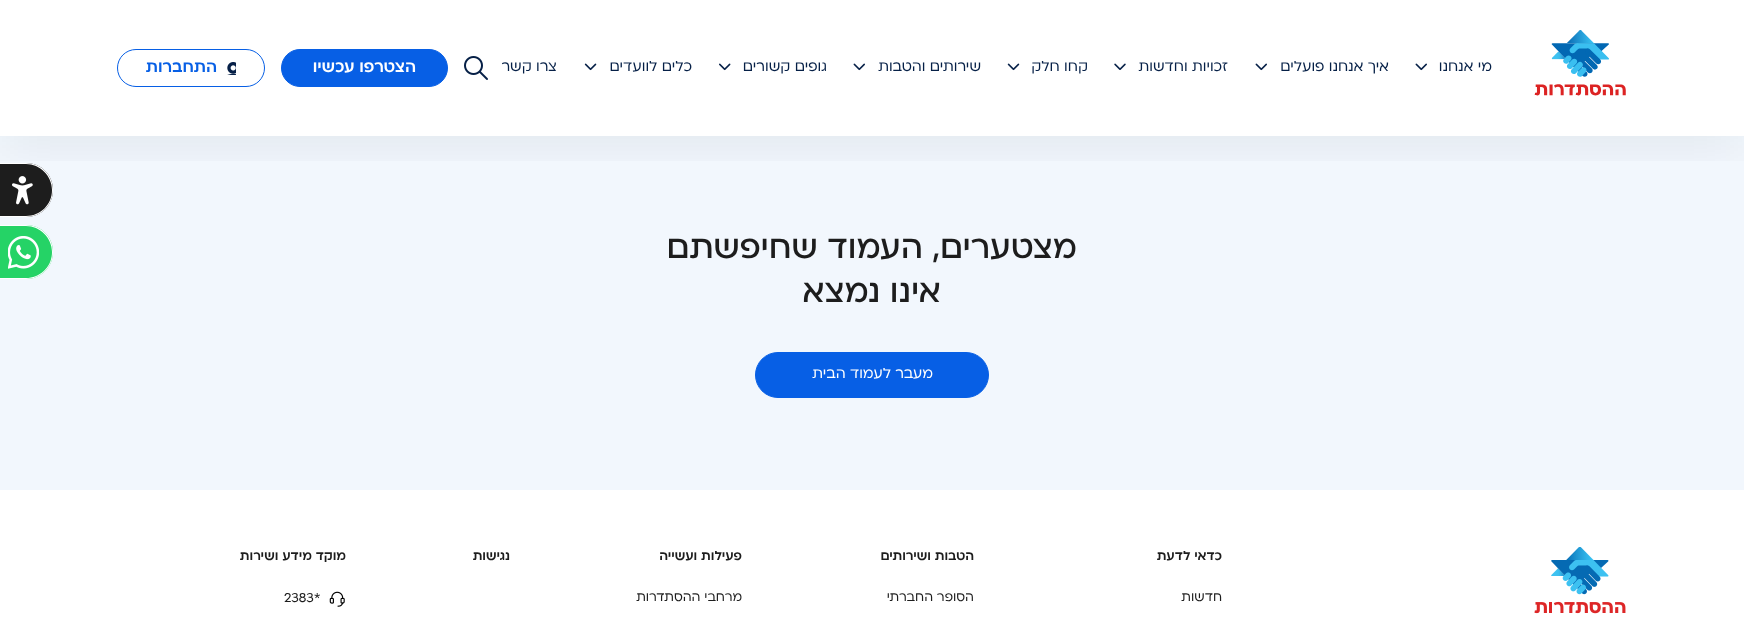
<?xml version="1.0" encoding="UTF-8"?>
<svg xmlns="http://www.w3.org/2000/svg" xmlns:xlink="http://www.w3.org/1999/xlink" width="1744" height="617">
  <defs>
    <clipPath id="clip1"><rect x="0" y="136" width="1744" height="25" /></clipPath>
  </defs>
  <rect width="100%" height="100%" fill="#ffffff" />
  <rect y="136" width="1744" height="354" fill="#f2f7fd" />
  <path d="M 0 163 h 26 c 15 0 27 12 27 27 c 0 15 -12 27 -27 27 h -26 z" fill="#1d1d1d" />
  <path d="M 0 163 h 26 c 15 0 27 12 27 27 c 0 15 -12 27 -27 27 h -26 z m 0 1 h 26 c 14 0 26 12 26 26 c 0 15 -12 26 -26 26 h -26 z" fill="#ffffff" fill-rule="evenodd" />
  <image x="12" y="176" width="21" height="29" xlink:href="image10.png" />
  <path d="M 0 225 h 26 c 15 0 27 12 27 27 c 0 15 -12 27 -27 27 h -26 z" fill="#25d366" />
  <path d="M 0 225 h 26 c 15 0 27 12 27 27 c 0 15 -12 27 -27 27 h -26 z m 0 1 h 26 c 14 0 26 12 26 26 c 0 15 -12 26 -26 26 h -26 z" fill="#ffffff" fill-rule="evenodd" />
  <g clip-path="url(#clip1)">
    <rect y="9" width="1744" height="136" fill="#020c1b" fill-opacity="0.07" filter="blur(27.5px)" />
  </g>
  <image x="1534" y="30" width="92" height="66" xlink:href="image1.png" />
  <image x="1415" y="63" width="12" height="8" xlink:href="image2.png" />
  <image x="1255" y="63" width="12" height="8" xlink:href="image3.png" />
  <image x="1114" y="63" width="12" height="7" xlink:href="image4.png" />
  <image x="1007" y="63" width="13" height="8" xlink:href="image5.png" />
  <image x="853" y="63" width="12" height="8" xlink:href="image3.png" />
  <image x="719" y="63" width="12" height="8" xlink:href="image6.png" />
  <image x="584" y="63" width="13" height="8" xlink:href="image7.png" />
  <image x="464" y="56" width="24" height="24" xlink:href="image8.png" />
  <rect x="281.5" y="49.5" width="166" height="37" rx="18.5" fill="#075fe5" stroke="#075fe5" />
  <rect x="117.5" y="49.5" width="147" height="37" rx="18.5" fill="none" stroke="#075fe5" />
  <image x="227" y="62" width="9" height="13" xlink:href="image9.png" />
  <rect x="755.5" y="352.5" width="233" height="45" rx="22.5" fill="#075fe5" stroke="#075fe5" />
  <image x="8" y="236" width="31" height="33" xlink:href="image11.png" />
  <image x="1534" y="547" width="92" height="67" xlink:href="image12.png" />
  <image x="329" y="591" width="16" height="16" xlink:href="image13.png" />
  <text x="1492" y="71" style="font-family: 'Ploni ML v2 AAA'; font-size: 16.5px; direction: rtl; fill: #062047">מי אנחנו</text>
  <text x="1389" y="71" style="font-family: 'Ploni ML v2 AAA'; font-size: 16.5px; direction: rtl; fill: #062047">איך אנחנו פועלים</text>
  <text x="1228" y="71" style="font-family: 'Ploni ML v2 AAA'; font-size: 16.5px; direction: rtl; fill: #062047">זכויות וחדשות</text>
  <text x="1088" y="71" style="font-family: 'Ploni ML v2 AAA'; font-size: 16.5px; direction: rtl; fill: #062047">קחו חלק</text>
  <text x="981" y="71" style="font-family: 'Ploni ML v2 AAA'; font-size: 16.5px; direction: rtl; fill: #062047">שירותים והטבות</text>
  <text x="827" y="71" style="font-family: 'Ploni ML v2 AAA'; font-size: 16.5px; direction: rtl; fill: #062047">גופים קשורים</text>
  <text x="692" y="71" style="font-family: 'Ploni ML v2 AAA'; font-size: 16.5px; direction: rtl; fill: #062047">כלים לוועדים</text>
  <text x="557" y="71" style="font-family: 'Ploni ML v2 AAA'; font-size: 16.5px; direction: rtl; fill: #062047">צרו קשר</text>
  <text x="416" y="72" style="font-family: 'Ploni ML v2 AAA'; font-size: 18.5px; font-weight: 600; direction: rtl; fill: #ffffff">הצטרפו עכשיו</text>
  <text x="217" y="72" style="font-family: 'Ploni ML v2 AAA'; font-size: 18.5px; font-weight: 600; direction: rtl; fill: #075fe5">התחברות</text>
  <text x="1077" y="258" style="font-family: 'Ploni ML v2 AAA'; font-size: 37px; font-weight: 500; direction: rtl; fill: #1d1d1d">מצטערים, העמוד שחיפשתם</text>
  <text x="941" y="302" style="font-family: 'Ploni ML v2 AAA'; font-size: 37px; font-weight: 500; direction: rtl; fill: #1d1d1d">אינו נמצא</text>
  <text x="933" y="378" style="font-family: 'Ploni ML v2 AAA'; font-size: 16.5px; direction: rtl; fill: #ffffff">מעבר לעמוד הבית</text>
  <text x="1222" y="560" style="font-family: 'Ploni ML v2 AAA'; font-size: 14.75px; font-weight: 600; direction: rtl; fill: #1d1d1d">כדאי לדעת</text>
  <text x="1222" y="601" style="font-family: 'Ploni ML v2 AAA'; font-size: 14.75px; direction: rtl; fill: #1d1d1d">חדשות</text>
  <text x="974" y="560" style="font-family: 'Ploni ML v2 AAA'; font-size: 14.75px; font-weight: 600; direction: rtl; fill: #1d1d1d">הטבות ושירותים</text>
  <text x="974" y="601" style="font-family: 'Ploni ML v2 AAA'; font-size: 14.75px; direction: rtl; fill: #1d1d1d">הסופר החברתי</text>
  <text x="742" y="560" style="font-family: 'Ploni ML v2 AAA'; font-size: 14.75px; font-weight: 600; direction: rtl; fill: #1d1d1d">פעילות ועשייה</text>
  <text x="742" y="601" style="font-family: 'Ploni ML v2 AAA'; font-size: 14.75px; direction: rtl; fill: #1d1d1d">מרחבי ההסתדרות</text>
  <text x="510" y="560" style="font-family: 'Ploni ML v2 AAA'; font-size: 14.75px; font-weight: 600; direction: rtl; fill: #1d1d1d">נגישות</text>
  <text x="346" y="560" style="font-family: 'Ploni ML v2 AAA'; font-size: 14.75px; font-weight: 600; direction: rtl; fill: #1d1d1d">מוקד מידע ושירות</text>
  <text x="284" y="602" style="font-family: 'Ploni ML v2 AAA'; font-size: 14.75px; fill: #1d1d1d">2383*</text>
</svg>
